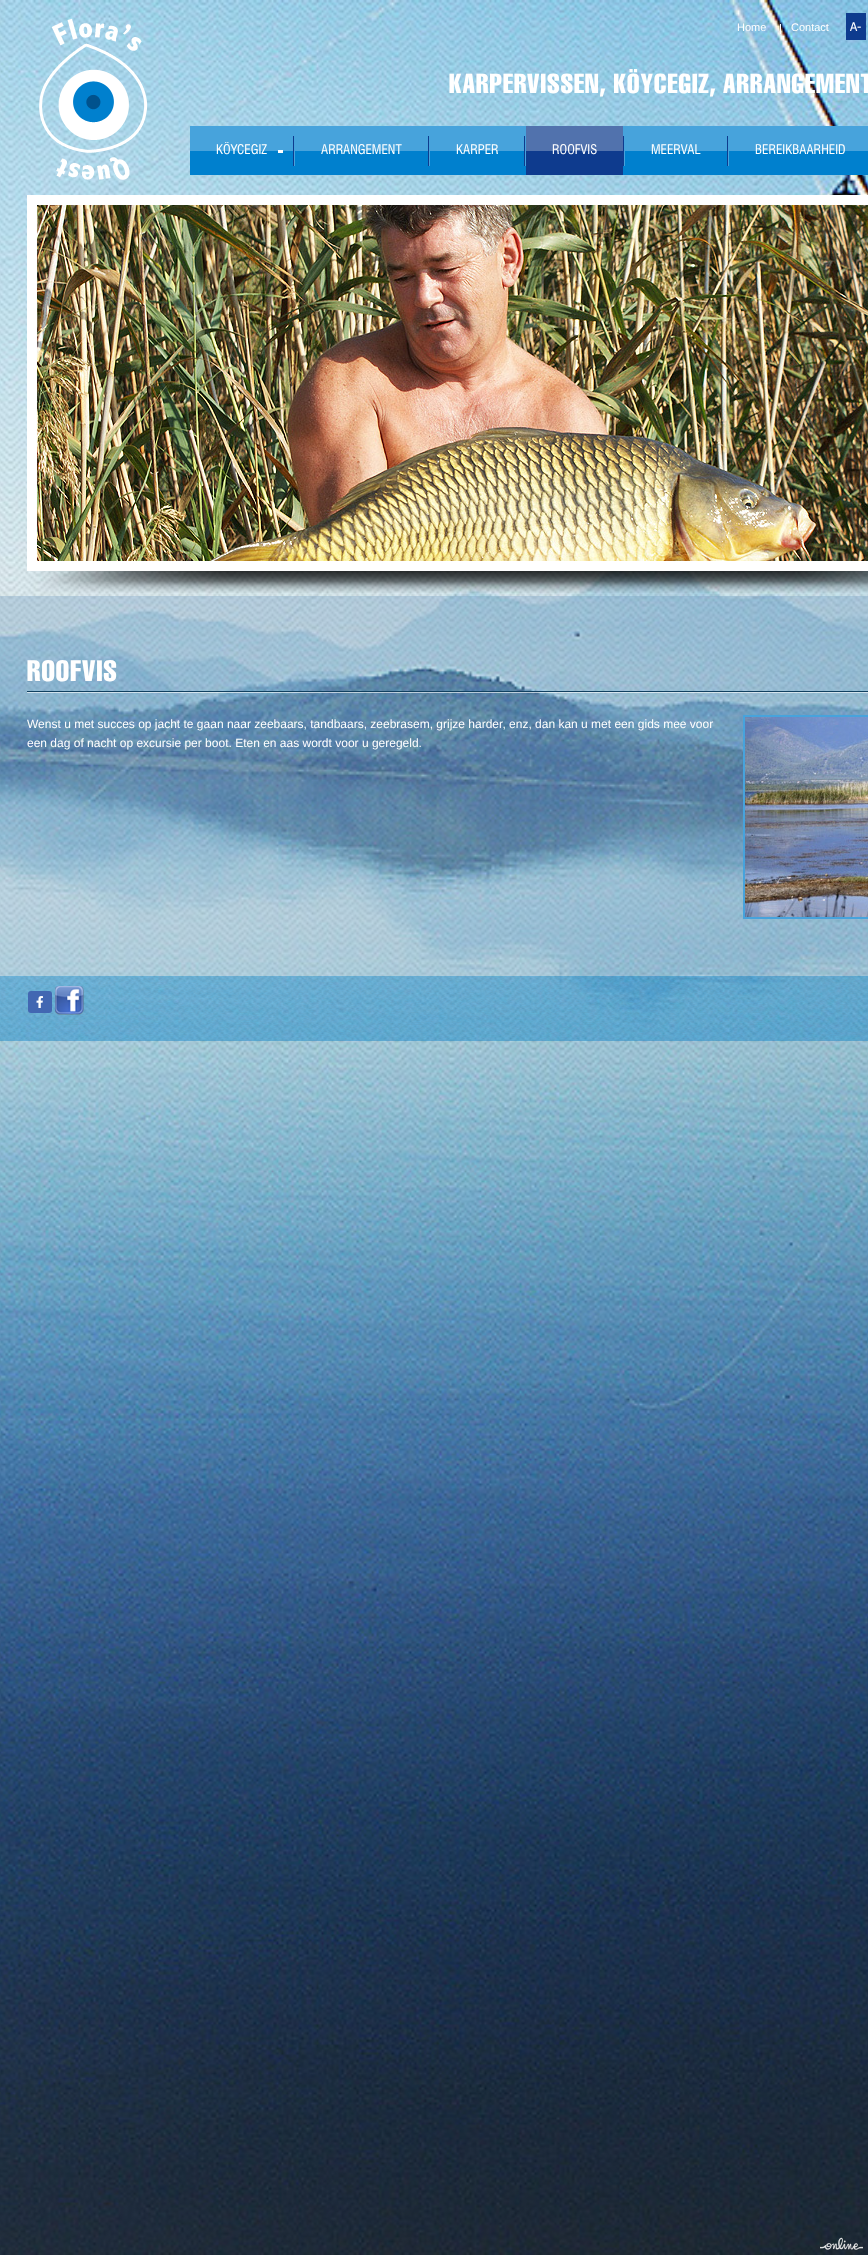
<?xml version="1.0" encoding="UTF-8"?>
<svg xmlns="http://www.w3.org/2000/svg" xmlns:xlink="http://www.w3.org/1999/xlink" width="868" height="2255">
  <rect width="100%" height="100%" fill="#ffffff" />
  <image x="0" y="0" width="868" height="2255" xlink:href="image1.png" />
  <image x="39" y="18" width="109" height="162" xlink:href="image2.png" />
  <image x="190" y="126" width="678" height="49" xlink:href="image3.png" />
  <image x="293" y="136" width="2" height="30" xlink:href="image4.png" />
  <rect x="278" y="150" width="5" height="3" fill="#ffffff" />
  <image x="428" y="136" width="2" height="30" xlink:href="image4.png" />
  <image x="524" y="136" width="2" height="30" xlink:href="image4.png" />
  <image x="623" y="136" width="2" height="30" xlink:href="image4.png" />
  <image x="526" y="126" width="97" height="49" xlink:href="image5.png" />
  <image x="727" y="136" width="2" height="30" xlink:href="image4.png" />
  <rect x="846" y="13" width="20" height="27" fill="#0e3b8e" />
  <rect x="780" y="24" width="1" height="10" fill="#ffffff" />
  <image x="27" y="195" width="841" height="398" xlink:href="image6.png" />
  <image x="37" y="205" width="831" height="356" xlink:href="image7.png" />
  <rect y="888" width="868" height="64" fill="#92b9d7" fill-opacity="0.3" />
  <image x="0" y="596" width="868" height="292" xlink:href="image8.png" />
  <image x="27" y="691" width="841" height="2" xlink:href="image9.png" />
  <rect x="744" y="716" width="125" height="202" fill="none" stroke="#47a3dc" stroke-width="2" />
  <image x="745" y="717" width="123" height="200" xlink:href="image10.png" />
  <image x="0" y="952" width="868" height="24" xlink:href="image11.png" />
  <image x="0" y="976" width="868" height="65" xlink:href="image12.png" />
  <rect x="28" y="991" width="24" height="22" rx="3" fill="#4267b2" />
  <image x="36" y="996" width="7" height="12" xlink:href="image13.png" />
  <image x="55" y="986" width="29" height="29" xlink:href="image14.png" />
  <image x="820" y="2237" width="43" height="13" xlink:href="image15.png" />
  <text x="737" y="31" style="font-family: Liberation Sans; font-size: 11px; fill: #ffffff">Home</text>
  <text x="791" y="31" style="font-family: Liberation Sans; font-size: 11px; fill: #ffffff">Contact</text>
  <text x="216" y="154" style="font-family: 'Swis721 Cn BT'; font-size: 13px; fill: #ffffff">KÖYCEGIZ</text>
  <text x="321" y="154" style="font-family: 'Swis721 Cn BT'; font-size: 13px; fill: #ffffff">ARRANGEMENT</text>
  <text x="456" y="154" style="font-family: 'Swis721 Cn BT'; font-size: 13px; fill: #ffffff">KARPER</text>
  <text x="552" y="154" style="font-family: 'Swis721 Cn BT'; font-size: 13px; fill: #ffffff">ROOFVIS</text>
  <text x="651" y="154" style="font-family: 'Swis721 Cn BT'; font-size: 13px; fill: #ffffff">MEERVAL</text>
  <text x="755" y="154" style="font-family: 'Swis721 Cn BT'; font-size: 13px; fill: #ffffff">BEREIKBAARHEID</text>
  <text x="850" y="31" style="font-family: Tahoma; font-size: 12px; fill: #ffffff">A-</text>
  <text x="449" y="93" style="font-family: Helvetica; font-size: 27px; font-weight: bold; letter-spacing: 1px; fill: #ffffff">KARPERVISSEN, KÖYCEGIZ, ARRANGEMENT</text>
  <text x="27" y="681" style="font-family: Helvetica; font-size: 29px; font-weight: bold; letter-spacing: 1px; fill: #ffffff">ROOFVIS</text>
  <text x="27" y="728" style="font-family: Liberation Sans; font-size: 12px; fill: #ffffff">Wenst u met succes op jacht te gaan naar zeebaars, tandbaars, zeebrasem, grijze harder, enz, dan kan u met een gids mee voor</text>
  <text x="27" y="747" style="font-family: Liberation Sans; font-size: 12px; fill: #ffffff">een dag of nacht op excursie per boot. Eten en aas wordt voor u geregeld.</text>
</svg>
